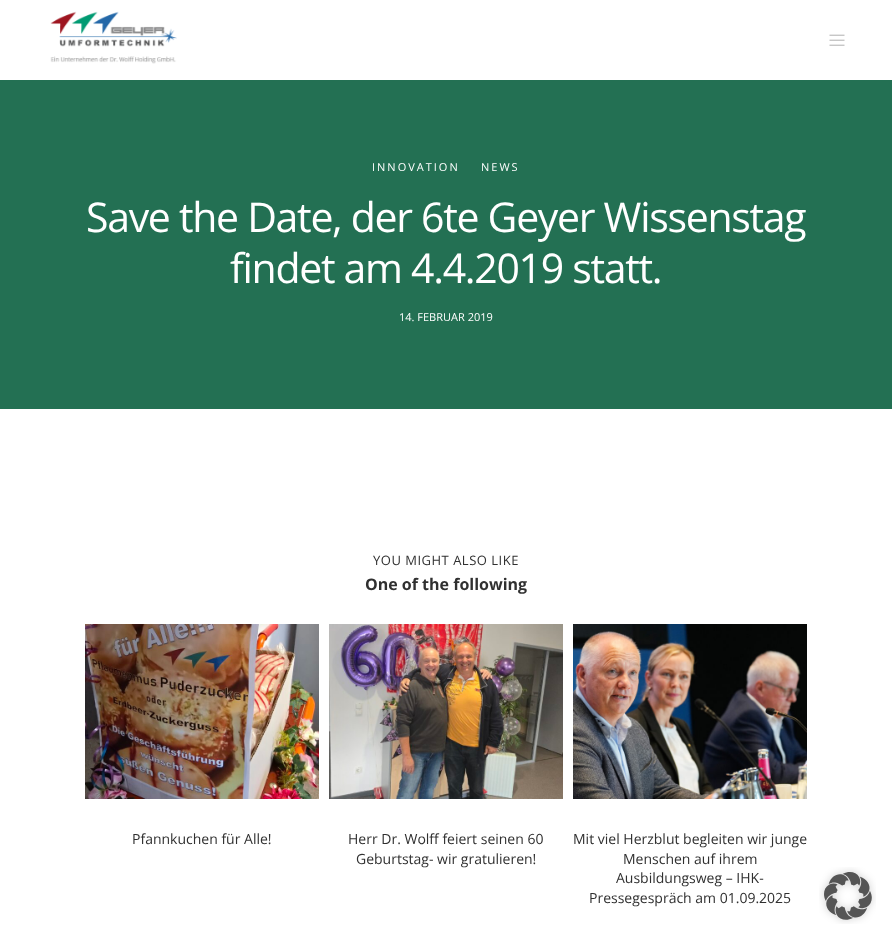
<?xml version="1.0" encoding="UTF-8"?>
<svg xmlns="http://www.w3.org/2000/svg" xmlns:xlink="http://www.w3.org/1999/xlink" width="892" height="940">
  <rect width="100%" height="100%" fill="#ffffff" />
  <image x="50" y="11" width="127" height="53" xlink:href="image1.png" />
  <image x="829" y="34" width="16" height="12" xlink:href="image2.png" />
  <rect y="80" width="892" height="329" fill="#237053" />
  <image x="85" y="624" width="234" height="175" xlink:href="image3.png" />
  <image x="329" y="624" width="234" height="175" xlink:href="image4.png" />
  <image x="573" y="624" width="234" height="175" xlink:href="image5.png" />
  <image x="819" y="867" width="57" height="57" xlink:href="image6.png" />
  <text x="372" y="171" style="font-family: Open Sans; font-size: 11px; letter-spacing: 2px; fill: #ffffff">INNOVATION</text>
  <text x="481" y="171" style="font-family: Open Sans; font-size: 11px; letter-spacing: 2px; fill: #ffffff">NEWS</text>
  <text x="86" y="232" style="font-family: Open Sans; font-size: 41px; letter-spacing: -1.3px; fill: #ffffff">Save the Date, der 6te Geyer Wissenstag</text>
  <text x="230" y="283" style="font-family: Open Sans; font-size: 41px; letter-spacing: -1.3px; fill: #ffffff">findet am 4.4.2019 statt.</text>
  <text x="399" y="321" style="font-family: Open Sans; font-size: 11px; fill: #ffffff">14. FEBRUAR 2019</text>
  <text x="373" y="565" style="font-family: Open Sans; font-size: 13px; letter-spacing: 0.5px; fill: #303030">YOU MIGHT ALSO LIKE</text>
  <text x="365" y="590" style="font-family: Open Sans; font-size: 16px; font-weight: bold; fill: #303030">One of the following</text>
  <text x="132" y="844" style="font-family: Open Sans; font-size: 14px; fill: #303030">Pfannkuchen für Alle!</text>
  <text x="348" y="844" style="font-family: Open Sans; font-size: 14px; fill: #303030">Herr Dr. Wolff feiert seinen 60</text>
  <text x="356" y="864" style="font-family: Open Sans; font-size: 14px; fill: #303030">Geburtstag- wir gratulieren!</text>
  <text x="573" y="844" style="font-family: Open Sans; font-size: 14px; fill: #303030">Mit viel Herzblut begleiten wir junge</text>
  <text x="623" y="864" style="font-family: Open Sans; font-size: 14px; fill: #303030">Menschen auf ihrem</text>
  <text x="616" y="883" style="font-family: Open Sans; font-size: 14px; fill: #303030">Ausbildungsweg – IHK-</text>
  <text x="589" y="903" style="font-family: Open Sans; font-size: 14px; fill: #303030">Pressegespräch am 01.09.2025</text>
</svg>
